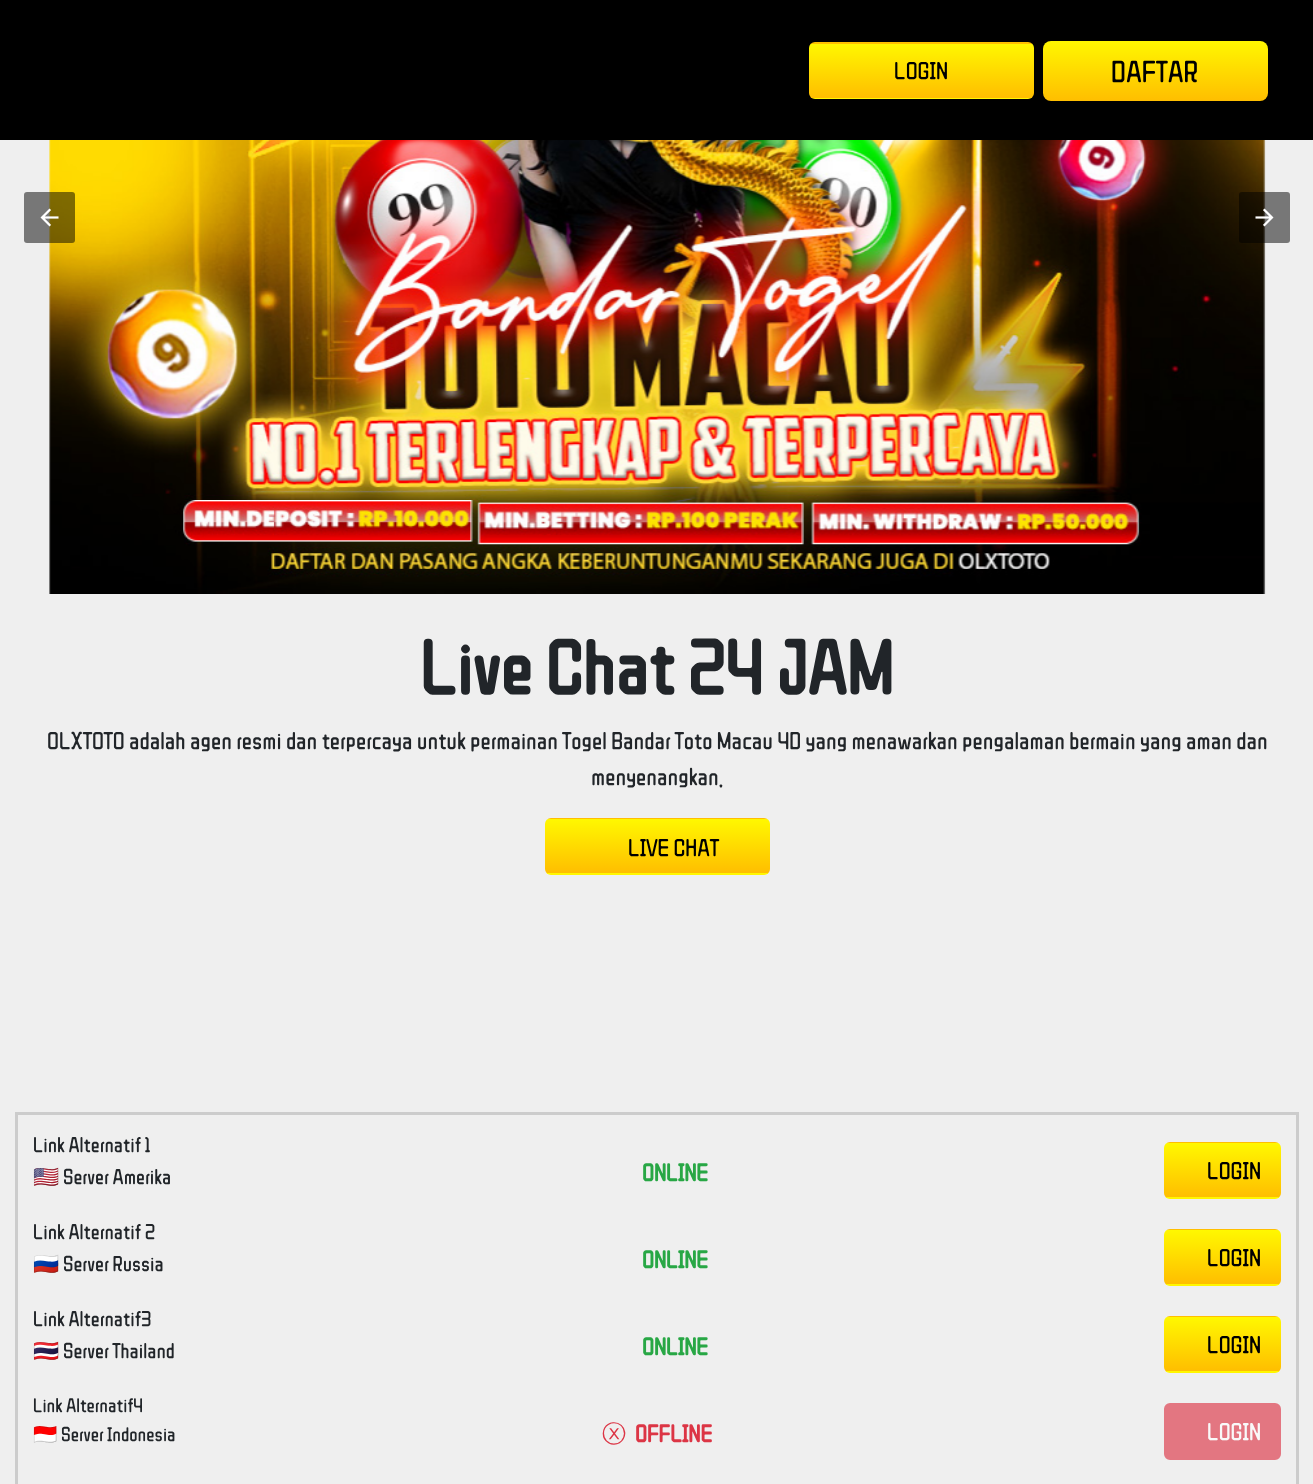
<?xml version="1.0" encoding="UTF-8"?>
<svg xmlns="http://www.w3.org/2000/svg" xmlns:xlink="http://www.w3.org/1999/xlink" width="1313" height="1484">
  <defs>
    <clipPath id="clip1"><rect x="809" y="42" width="225" height="57" rx="6" /></clipPath>
    <linearGradient id="g1" gradientUnits="userSpaceOnUse" x1="921" y1="-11" x2="921" y2="44"><stop offset="0" stop-color="#fff800" /><stop offset="1" stop-color="#ffbe00" /></linearGradient>
    <linearGradient id="g2" gradientUnits="userSpaceOnUse" x1="921" y1="43" x2="921" y2="98"><stop offset="0" stop-color="#fff800" /><stop offset="1" stop-color="#ffbe00" /></linearGradient>
    <linearGradient id="g3" gradientUnits="userSpaceOnUse" x1="921" y1="97" x2="921" y2="152"><stop offset="0" stop-color="#fff800" /><stop offset="1" stop-color="#ffbe00" /></linearGradient>
    <linearGradient id="g4" gradientUnits="userSpaceOnUse" x1="1155" y1="40" x2="1155" y2="101"><stop offset="0" stop-color="#fff800" /><stop offset="1" stop-color="#ffbe00" /></linearGradient>
    <clipPath id="clip2"><rect x="545" y="818" width="225" height="57" rx="6" /></clipPath>
    <linearGradient id="g5" gradientUnits="userSpaceOnUse" x1="657" y1="765" x2="657" y2="819"><stop offset="0" stop-color="#fff800" /><stop offset="1" stop-color="#ffbe00" /></linearGradient>
    <linearGradient id="g6" gradientUnits="userSpaceOnUse" x1="657" y1="819" x2="657" y2="873"><stop offset="0" stop-color="#fff800" /><stop offset="1" stop-color="#ffbe00" /></linearGradient>
    <linearGradient id="g7" gradientUnits="userSpaceOnUse" x1="657" y1="873" x2="657" y2="927"><stop offset="0" stop-color="#fff800" /><stop offset="1" stop-color="#ffbe00" /></linearGradient>
    <clipPath id="clip3"><rect x="1164" y="1142" width="117" height="57" rx="6" /></clipPath>
    <linearGradient id="g8" gradientUnits="userSpaceOnUse" x1="1223" y1="1089" x2="1223" y2="1143"><stop offset="0" stop-color="#fff800" /><stop offset="1" stop-color="#ffbe00" /></linearGradient>
    <linearGradient id="g9" gradientUnits="userSpaceOnUse" x1="1223" y1="1143" x2="1223" y2="1197"><stop offset="0" stop-color="#fff800" /><stop offset="1" stop-color="#ffbe00" /></linearGradient>
    <linearGradient id="g10" gradientUnits="userSpaceOnUse" x1="1223" y1="1197" x2="1223" y2="1251"><stop offset="0" stop-color="#fff800" /><stop offset="1" stop-color="#ffbe00" /></linearGradient>
    <clipPath id="clip4"><rect x="1164" y="1229" width="117" height="57" rx="6" /></clipPath>
    <linearGradient id="g11" gradientUnits="userSpaceOnUse" x1="1223" y1="1176" x2="1223" y2="1230"><stop offset="0" stop-color="#fff800" /><stop offset="1" stop-color="#ffbe00" /></linearGradient>
    <linearGradient id="g12" gradientUnits="userSpaceOnUse" x1="1223" y1="1230" x2="1223" y2="1284"><stop offset="0" stop-color="#fff800" /><stop offset="1" stop-color="#ffbe00" /></linearGradient>
    <linearGradient id="g13" gradientUnits="userSpaceOnUse" x1="1223" y1="1284" x2="1223" y2="1338"><stop offset="0" stop-color="#fff800" /><stop offset="1" stop-color="#ffbe00" /></linearGradient>
    <clipPath id="clip5"><rect x="1164" y="1316" width="117" height="57" rx="6" /></clipPath>
    <linearGradient id="g14" gradientUnits="userSpaceOnUse" x1="1223" y1="1263" x2="1223" y2="1317"><stop offset="0" stop-color="#fff800" /><stop offset="1" stop-color="#ffbe00" /></linearGradient>
    <linearGradient id="g15" gradientUnits="userSpaceOnUse" x1="1223" y1="1317" x2="1223" y2="1371"><stop offset="0" stop-color="#fff800" /><stop offset="1" stop-color="#ffbe00" /></linearGradient>
    <linearGradient id="g16" gradientUnits="userSpaceOnUse" x1="1223" y1="1371" x2="1223" y2="1425"><stop offset="0" stop-color="#fff800" /><stop offset="1" stop-color="#ffbe00" /></linearGradient>
  </defs>
  <rect width="100%" height="100%" fill="#efefef" />
  <rect width="1313" height="140" fill="#000000" />
  <g clip-path="url(#clip1)">
    <rect x="809" y="42" width="225" height="2" fill="url(#g1)" />
    <rect x="809" y="44" width="225" height="54" fill="url(#g2)" />
    <rect x="809" y="98" width="225" height="1" fill="url(#g3)" />
  </g>
  <rect x="1043" y="41" width="225" height="60" rx="8" fill="url(#g4)" />
  <image x="49" y="140" width="1217" height="454" xlink:href="image1.png" />
  <rect x="24" y="192" width="51" height="51" rx="3" fill="#000000" fill-opacity="0.5" />
  <image x="40" y="208" width="19" height="19" xlink:href="image2.png" />
  <rect x="1239" y="192" width="51" height="51" rx="3" fill="#000000" fill-opacity="0.5" />
  <image x="1255" y="208" width="19" height="19" xlink:href="image3.png" />
  <g clip-path="url(#clip2)">
    <rect x="545" y="818" width="225" height="1" fill="url(#g5)" />
    <rect x="545" y="819" width="225" height="54" fill="url(#g6)" />
    <rect x="545" y="873" width="225" height="2" fill="url(#g7)" />
  </g>
  <rect x="16.5" y="1113.5" width="1281" height="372" fill="none" stroke="#cccccc" stroke-width="3" />
  <g clip-path="url(#clip3)">
    <rect x="1164" y="1142" width="117" height="1" fill="url(#g8)" />
    <rect x="1164" y="1143" width="117" height="54" fill="url(#g9)" />
    <rect x="1164" y="1197" width="117" height="2" fill="url(#g10)" />
  </g>
  <g clip-path="url(#clip4)">
    <rect x="1164" y="1229" width="117" height="1" fill="url(#g11)" />
    <rect x="1164" y="1230" width="117" height="54" fill="url(#g12)" />
    <rect x="1164" y="1284" width="117" height="2" fill="url(#g13)" />
  </g>
  <g clip-path="url(#clip5)">
    <rect x="1164" y="1316" width="117" height="1" fill="url(#g14)" />
    <rect x="1164" y="1317" width="117" height="54" fill="url(#g15)" />
    <rect x="1164" y="1371" width="117" height="2" fill="url(#g16)" />
  </g>
  <rect x="1165" y="1404" width="115" height="55" rx="5" fill="#e37681" stroke="#e37681" stroke-width="2" />
  <text x="894" y="79" style="font-family: ZCOOL QingKe HuangYou; font-size: 24px; fill: #000000">LOGIN</text>
  <text x="1111" y="82" style="font-family: ZCOOL QingKe HuangYou; font-size: 30px; fill: #000000">DAFTAR</text>
  <text x="420" y="694" style="font-family: ZCOOL QingKe HuangYou; font-size: 75px; font-weight: bold; fill: #212529">Live Chat 24 JAM</text>
  <text x="47" y="749" style="font-family: ZCOOL QingKe HuangYou; font-size: 24px; fill: #212529">OLXTOTO adalah agen resmi dan terpercaya untuk permainan Togel Bandar Toto Macau 4D yang menawarkan pengalaman bermain yang aman dan</text>
  <text x="591" y="785" style="font-family: ZCOOL QingKe HuangYou; font-size: 24px; fill: #212529">menyenangkan.</text>
  <text x="628" y="856" style="font-family: ZCOOL QingKe HuangYou; font-size: 24px; fill: #000000">LIVE CHAT</text>
  <text x="33" y="1152" style="font-family: ZCOOL QingKe HuangYou; font-size: 21px; fill: #212529">Link Alternatif 1</text>
  <text x="33" y="1184" style="font-family: Noto Color Emoji; font-size: 21px; fill: #212529">🇺🇸</text>
  <text x="63" y="1184" style="font-family: ZCOOL QingKe HuangYou; font-size: 21px; fill: #212529">Server Amerika</text>
  <text x="642" y="1181" style="font-family: ZCOOL QingKe HuangYou; font-size: 24px; font-weight: bold; fill: #28a745">ONLINE</text>
  <text x="1207" y="1179" style="font-family: ZCOOL QingKe HuangYou; font-size: 24px; fill: #000000">LOGIN</text>
  <text x="33" y="1239" style="font-family: ZCOOL QingKe HuangYou; font-size: 21px; fill: #212529">Link Alternatif 2</text>
  <text x="33" y="1271" style="font-family: Noto Color Emoji; font-size: 21px; fill: #212529">🇷🇺</text>
  <text x="63" y="1271" style="font-family: ZCOOL QingKe HuangYou; font-size: 21px; fill: #212529">Server Russia</text>
  <text x="642" y="1268" style="font-family: ZCOOL QingKe HuangYou; font-size: 24px; font-weight: bold; fill: #28a745">ONLINE</text>
  <text x="1207" y="1266" style="font-family: ZCOOL QingKe HuangYou; font-size: 24px; fill: #000000">LOGIN</text>
  <text x="33" y="1326" style="font-family: ZCOOL QingKe HuangYou; font-size: 21px; fill: #212529">Link Alternatif3</text>
  <text x="33" y="1358" style="font-family: Noto Color Emoji; font-size: 21px; fill: #212529">🇹🇭</text>
  <text x="63" y="1358" style="font-family: ZCOOL QingKe HuangYou; font-size: 21px; fill: #212529">Server Thailand</text>
  <text x="642" y="1355" style="font-family: ZCOOL QingKe HuangYou; font-size: 24px; font-weight: bold; fill: #28a745">ONLINE</text>
  <text x="1207" y="1353" style="font-family: ZCOOL QingKe HuangYou; font-size: 24px; fill: #000000">LOGIN</text>
  <text x="33" y="1412" style="font-family: ZCOOL QingKe HuangYou; font-size: 19.5px; fill: #212529">Link Alternatif4</text>
  <text x="33" y="1441" style="font-family: Noto Color Emoji; font-size: 19.5px; fill: #212529">🇮🇩</text>
  <text x="61" y="1441" style="font-family: ZCOOL QingKe HuangYou; font-size: 19.5px; fill: #212529">Server Indonesia</text>
  <text x="602" y="1442" style="font-family: WenQuanYi Zen Hei; font-size: 24px; font-weight: 500; fill: #dc3545">ⓧ</text>
  <text x="635" y="1442" style="font-family: ZCOOL QingKe HuangYou; font-size: 24px; font-weight: bold; fill: #dc3545">OFFLINE</text>
  <text x="1207" y="1440" style="font-family: ZCOOL QingKe HuangYou; font-size: 24px; fill: #f9f9f9">LOGIN</text>
</svg>
